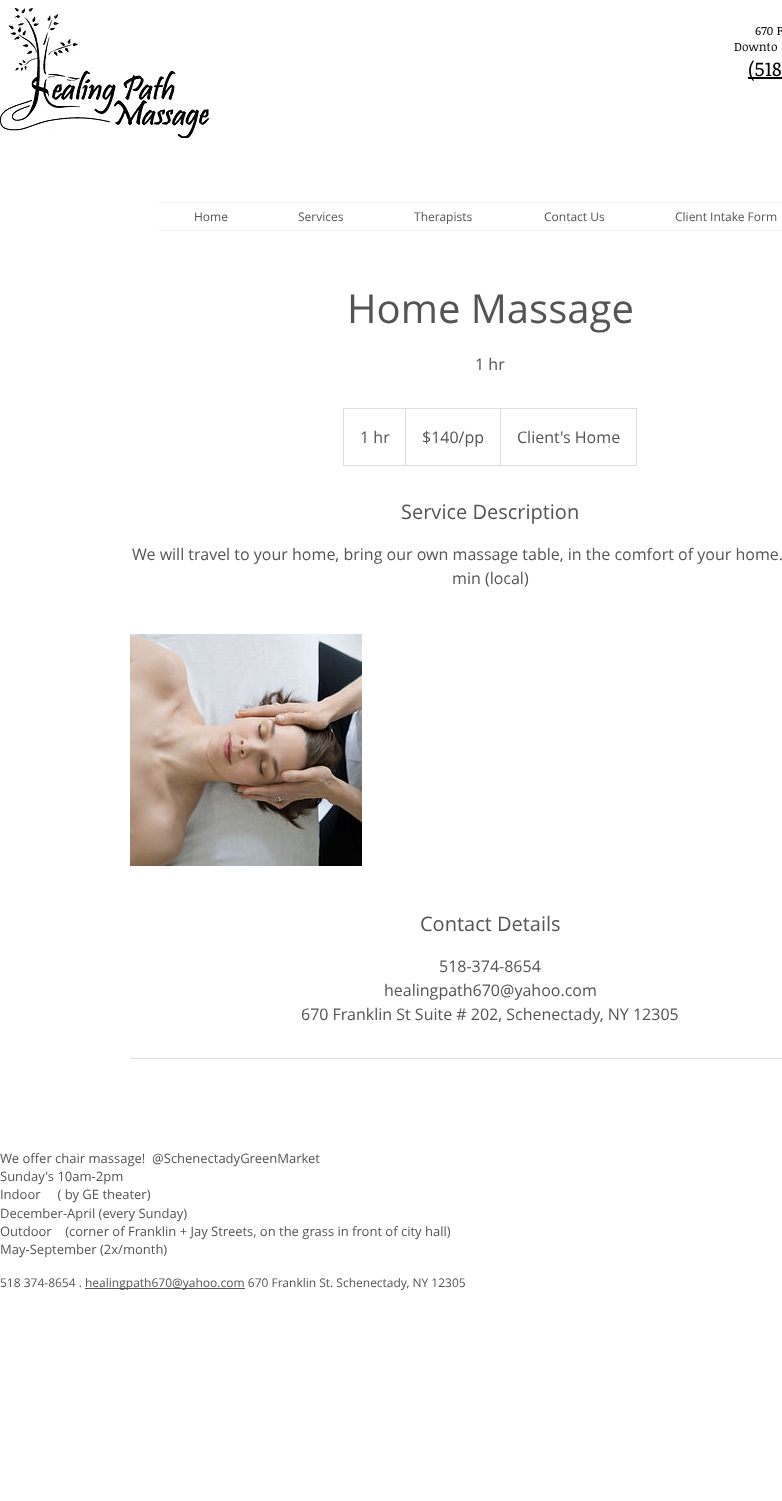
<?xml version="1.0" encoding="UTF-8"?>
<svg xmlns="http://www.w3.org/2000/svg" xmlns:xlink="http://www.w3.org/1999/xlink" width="782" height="1501">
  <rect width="100%" height="100%" fill="#ffffff" />
  <image x="0" y="8" width="209" height="130" xlink:href="image1.png" />
  <rect x="748" y="77" width="34" height="2" fill="#000000" />
  <rect x="158" y="202" width="624" height="1" fill="#f4f4f4" />
  <rect x="158" y="230" width="624" height="1" fill="#f4f4f4" />
  <rect x="343.5" y="408.5" width="293" height="57" fill="none" stroke="#dddddd" />
  <path d="M 405 465 v -57 l 1 1 v 56 z" fill="#dddddd" />
  <path d="M 500 465 v -57 l 1 1 v 56 z" fill="#dddddd" />
  <image x="130" y="634" width="232" height="232" xlink:href="image2.png" />
  <rect x="130" y="1058" width="652" height="1" fill="#dddddd" />
  <rect x="85" y="1288" width="160" height="1" fill="#545454" />
  <text x="755" y="35" style="font-family: Noticia Text; font-size: 12px; fill: #000000">670 F</text>
  <text x="734" y="51" style="font-family: Noticia Text; font-size: 12px; fill: #000000">Downto</text>
  <text x="748" y="76" style="font-family: Noticia Text; font-size: 20px; fill: #000000">(518</text>
  <text x="194" y="221" style="font-family: Open Sans; font-size: 12px; fill: #545454">Home</text>
  <text x="298" y="221" style="font-family: Open Sans; font-size: 12px; fill: #545454">Services</text>
  <text x="414" y="221" style="font-family: Open Sans; font-size: 12px; fill: #545454">Therapists</text>
  <text x="544" y="221" style="font-family: Open Sans; font-size: 12px; fill: #545454">Contact Us</text>
  <text x="675" y="221" style="font-family: Open Sans; font-size: 12px; fill: #545454">Client Intake Form</text>
  <text x="347" y="323" style="font-family: Open Sans; font-size: 40px; fill: #545454">Home Massage</text>
  <text x="475" y="370" style="font-family: Open Sans; font-size: 16px; fill: #545454">1 hr</text>
  <text x="360" y="443" style="font-family: Open Sans; font-size: 16px; fill: #545454">1 hr</text>
  <text x="422" y="443" style="font-family: Open Sans; font-size: 16px; fill: #545454">$140/pp</text>
  <text x="517" y="443" style="font-family: Open Sans; font-size: 16px; fill: #545454">Client's Home</text>
  <text x="401" y="519" style="font-family: Open Sans; font-size: 20px; fill: #545454">Service Description</text>
  <text x="132" y="560" style="font-family: Open Sans; font-size: 16px; fill: #545454">We will travel to your home, bring our own massage table, in the comfort of your home.</text>
  <text x="452" y="584" style="font-family: Open Sans; font-size: 16px; fill: #545454">min (local)</text>
  <text x="420" y="931" style="font-family: Open Sans; font-size: 20px; fill: #545454">Contact Details</text>
  <text x="439" y="972" style="font-family: Open Sans; font-size: 16px; fill: #545454">518-374-8654</text>
  <text x="384" y="996" style="font-family: Open Sans; font-size: 16px; fill: #545454">healingpath670@yahoo.com</text>
  <text x="301" y="1020" style="font-family: Open Sans; font-size: 16px; fill: #545454">670 Franklin St Suite # 202, Schenectady, NY 12305</text>
  <text x="0" y="1163" style="font-family: Open Sans; font-size: 13px; fill: #545454" xml:space="preserve">We offer chair massage!  @SchenectadyGreenMarket</text>
  <text x="0" y="1181" style="font-family: Open Sans; font-size: 13px; fill: #545454">Sunday's 10am-2pm</text>
  <text x="0" y="1199" style="font-family: Open Sans; font-size: 13px; fill: #545454" xml:space="preserve">Indoor     ( by GE theater)</text>
  <text x="0" y="1218" style="font-family: Open Sans; font-size: 13px; fill: #545454">December-April (every Sunday)</text>
  <text x="0" y="1236" style="font-family: Open Sans; font-size: 13px; fill: #545454" xml:space="preserve">Outdoor    (corner of Franklin + Jay Streets, on the grass in front of city hall)</text>
  <text x="0" y="1254" style="font-family: Open Sans; font-size: 13px; fill: #545454">May-September (2x/month)</text>
  <text x="0" y="1287" style="font-family: Open Sans; font-size: 12px; fill: #545454">518 374-8654 .</text>
  <text x="85" y="1287" style="font-family: Open Sans; font-size: 12px; fill: #545454">healingpath670@yahoo.com 670 Franklin St. Schenectady, NY 12305</text>
</svg>
